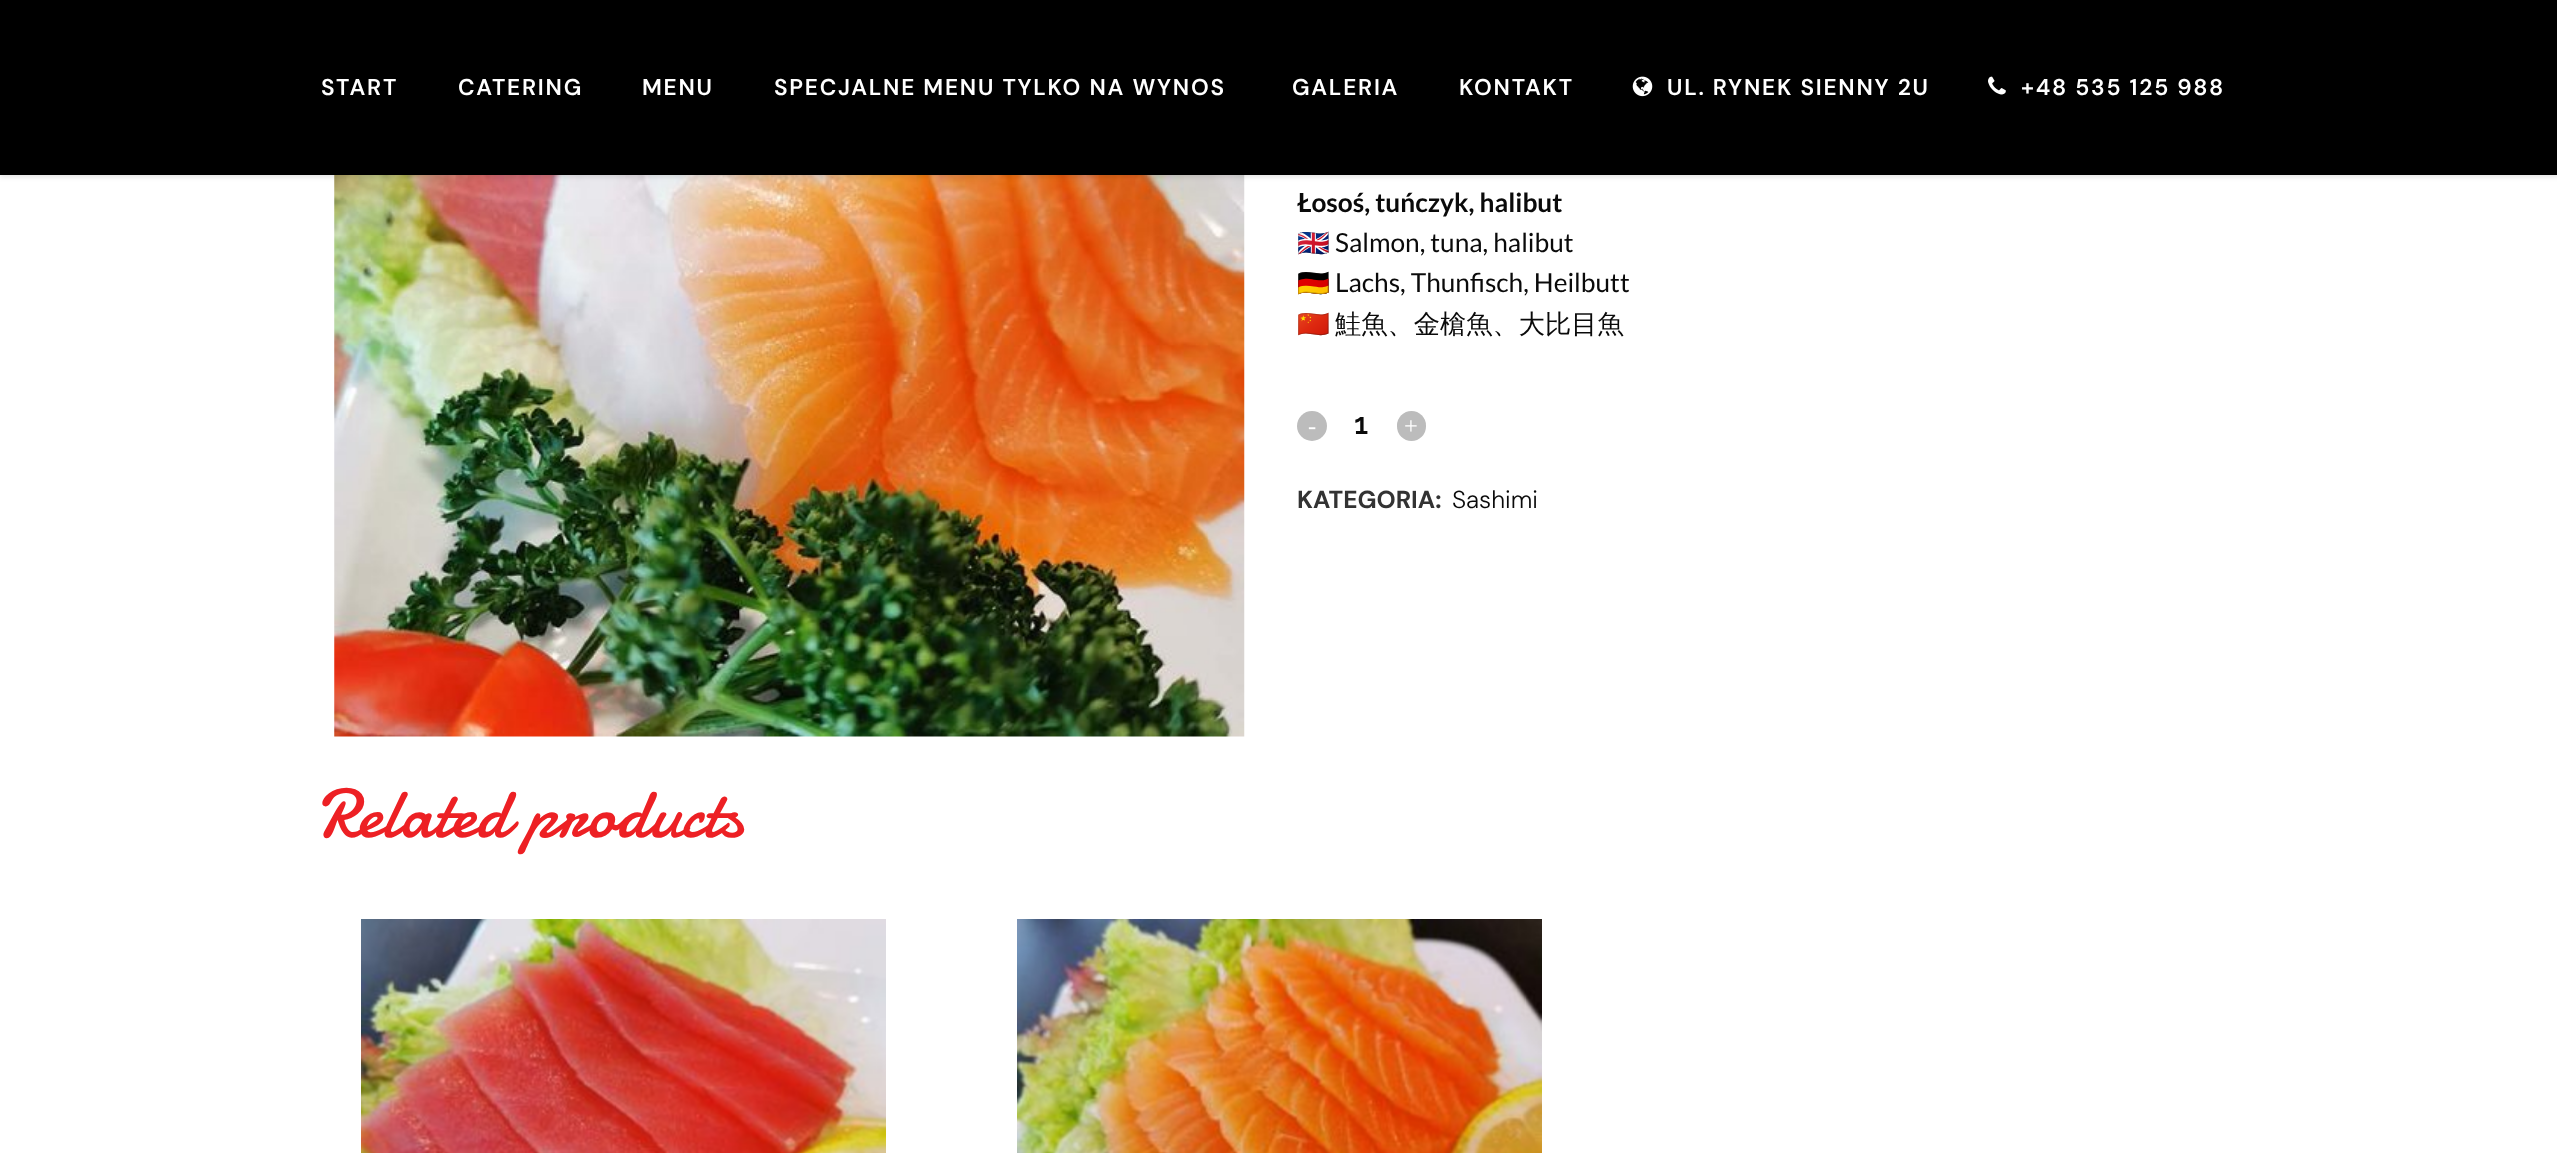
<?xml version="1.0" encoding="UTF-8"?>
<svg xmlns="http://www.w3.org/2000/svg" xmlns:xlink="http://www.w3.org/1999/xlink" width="2557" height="1153">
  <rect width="100%" height="100%" fill="#ffffff" />
  <image x="334" y="175" width="911" height="562" xlink:href="image3.png" />
  <rect y="2" width="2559" height="175" fill="#000000" fill-opacity="0.11" filter="blur(2.5px)" />
  <rect width="2557" height="175" fill="#000000" />
  <image x="1632" y="76" width="21" height="21" xlink:href="image1.png" />
  <image x="1988" y="76" width="18" height="19" xlink:href="image2.png" />
  <circle cx="1312" cy="426" r="15" fill="#bcbcbc" />
  <rect x="1397" y="411" width="29" height="30" rx="14.5" fill="#bcbcbc" />
  <image x="361" y="919" width="525" height="234" xlink:href="image4.png" />
  <image x="1017" y="919" width="525" height="234" xlink:href="image5.png" />
  <text x="321" y="95" style="font-family: DM Sans; font-size: 22.75px; font-weight: 600; letter-spacing: 1.75px; fill: #ffffff">START</text>
  <text x="458" y="95" style="font-family: DM Sans; font-size: 22.75px; font-weight: 600; letter-spacing: 1.75px; fill: #ffffff">CATERING</text>
  <text x="642" y="95" style="font-family: DM Sans; font-size: 22.75px; font-weight: 600; letter-spacing: 1.75px; fill: #ffffff">MENU</text>
  <text x="774" y="95" style="font-family: DM Sans; font-size: 22.75px; font-weight: 600; letter-spacing: 1.75px; fill: #ffffff">SPECJALNE MENU TYLKO NA WYNOS</text>
  <text x="1292" y="95" style="font-family: DM Sans; font-size: 22.75px; font-weight: 600; letter-spacing: 1.75px; fill: #ffffff">GALERIA</text>
  <text x="1459" y="95" style="font-family: DM Sans; font-size: 22.75px; font-weight: 600; letter-spacing: 1.75px; fill: #ffffff">KONTAKT</text>
  <text x="1667" y="95" style="font-family: DM Sans; font-size: 22.75px; font-weight: 600; letter-spacing: 1.75px; fill: #ffffff">UL. RYNEK SIENNY 2U</text>
  <text x="2021" y="95" style="font-family: DM Sans; font-size: 22.75px; font-weight: 600; letter-spacing: 1.75px; fill: #ffffff">+48 535 125 988</text>
  <text x="1297" y="212" style="font-family: Lato; font-size: 26.25px; font-weight: bold; fill: #0a0a0a">Łosoś, tuńczyk, halibut</text>
  <text x="1297" y="252" style="font-family: Noto Color Emoji; font-size: 26.25px; fill: #0a0a0a">🇬🇧</text>
  <text x="1335" y="252" style="font-family: Lato; font-size: 26.25px; fill: #0a0a0a">Salmon, tuna, halibut</text>
  <text x="1297" y="292" style="font-family: Noto Color Emoji; font-size: 26.25px; fill: #0a0a0a">🇩🇪</text>
  <text x="1335" y="292" style="font-family: Lato; font-size: 26.25px; fill: #0a0a0a">Lachs, Thunfisch, Heilbutt</text>
  <text x="1297" y="333" style="font-family: Noto Color Emoji; font-size: 26.25px; fill: #0a0a0a">🇨🇳</text>
  <text x="1335" y="333" style="font-family: WenQuanYi Zen Hei; font-size: 26.25px; font-weight: 500; fill: #0a0a0a">鮭魚、金槍魚、大比目魚</text>
  <text x="1308" y="434" style="font-family: Liberation Serif; font-size: 24.5px; fill: #ffffff">-</text>
  <text x="1354" y="434" style="font-family: Raleway; font-size: 30px; font-weight: 600; fill: #0a0a0a">1</text>
  <text x="1404" y="434" style="font-family: Liberation Serif; font-size: 24.5px; fill: #ffffff">+</text>
  <text x="1297" y="508" style="font-family: DM Sans; font-size: 24.5px; font-weight: bold; fill: #333333">KATEGORIA:</text>
  <text x="1452" y="508" style="font-family: DM Sans; font-size: 24.5px; font-weight: 300; fill: #0a0a0a">Sashimi</text>
  <text x="317" y="837" style="font-family: Damion; font-size: 70px; fill: #ed2024">Related products</text>
</svg>
